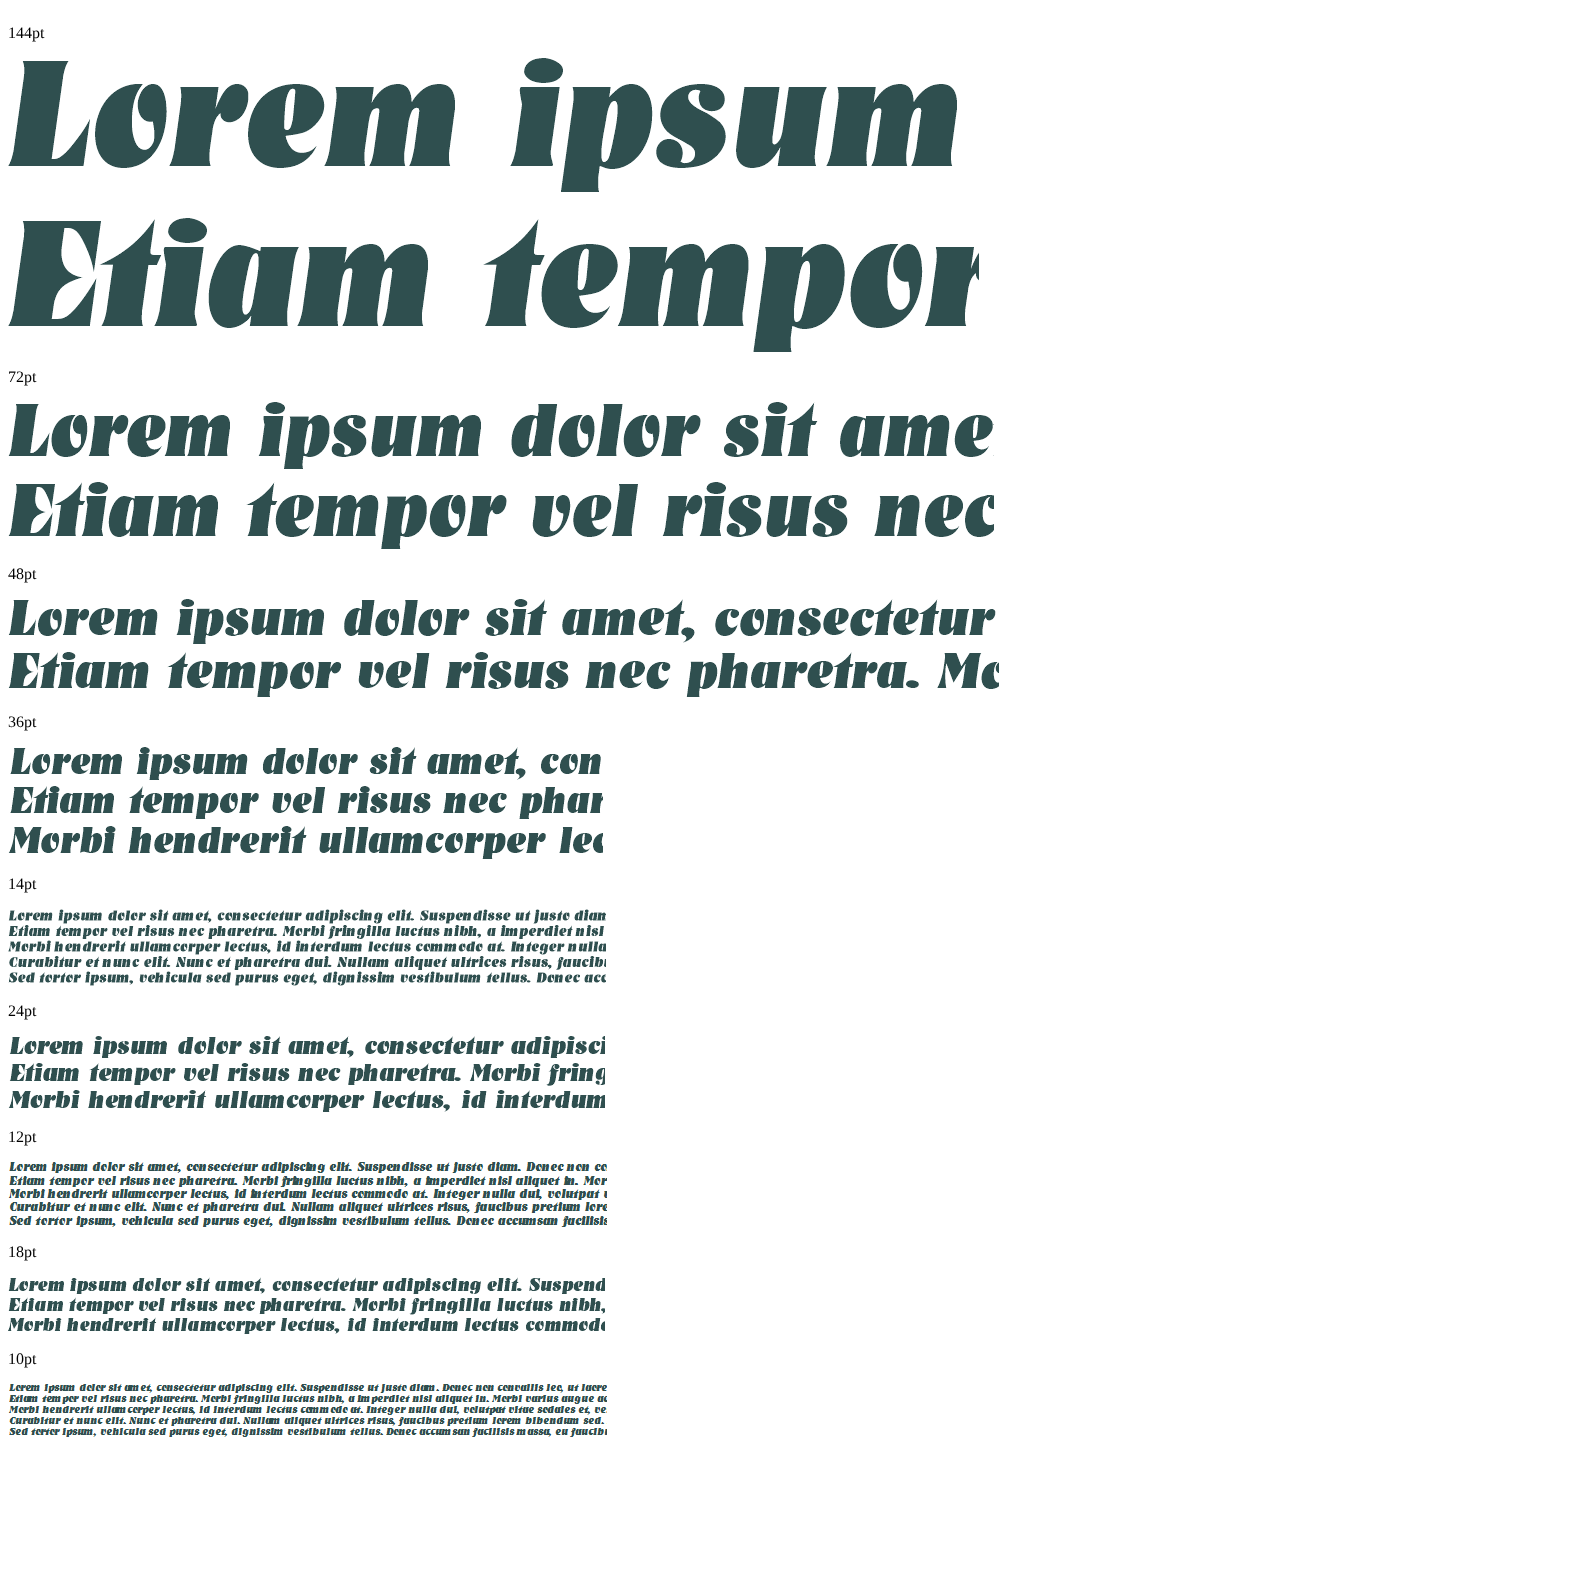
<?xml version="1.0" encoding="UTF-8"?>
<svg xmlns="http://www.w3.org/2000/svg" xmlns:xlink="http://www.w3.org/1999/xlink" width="1582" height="1582">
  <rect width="100%" height="100%" fill="#ffffff" />
  <image x="8" y="58" width="971" height="294" xlink:href="image1.png" />
  <image x="8" y="402" width="986" height="147" xlink:href="image2.png" />
  <image x="8" y="599" width="991" height="98" xlink:href="image3.png" />
  <image x="8" y="747" width="595" height="112" xlink:href="image4.png" />
  <image x="8" y="909" width="598" height="77" xlink:href="image5.png" />
  <image x="8" y="1036" width="597" height="76" xlink:href="image6.png" />
  <image x="8" y="1162" width="599" height="65" xlink:href="image7.png" />
  <image x="8" y="1277" width="597" height="57" xlink:href="image8.png" />
  <image x="8" y="1384" width="599" height="53" xlink:href="image9.png" />
  <text x="8" y="38" style="font-family: Liberation Serif; font-size: 16px; fill: #000000">144pt</text>
  <text x="8" y="382" style="font-family: Liberation Serif; font-size: 16px; fill: #000000">72pt</text>
  <text x="8" y="579" style="font-family: Liberation Serif; font-size: 16px; fill: #000000">48pt</text>
  <text x="8" y="727" style="font-family: Liberation Serif; font-size: 16px; fill: #000000">36pt</text>
  <text x="8" y="889" style="font-family: Liberation Serif; font-size: 16px; fill: #000000">14pt</text>
  <text x="8" y="1016" style="font-family: Liberation Serif; font-size: 16px; fill: #000000">24pt</text>
  <text x="8" y="1142" style="font-family: Liberation Serif; font-size: 16px; fill: #000000">12pt</text>
  <text x="8" y="1257" style="font-family: Liberation Serif; font-size: 16px; fill: #000000">18pt</text>
  <text x="8" y="1364" style="font-family: Liberation Serif; font-size: 16px; fill: #000000">10pt</text>
</svg>
